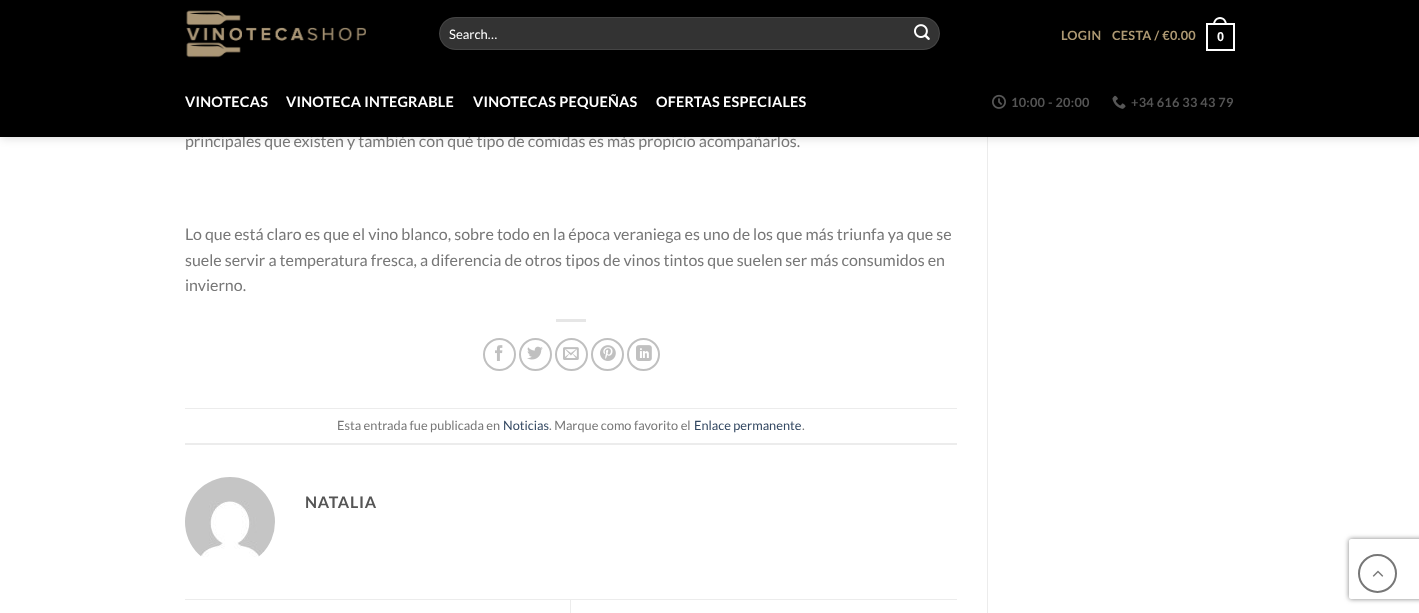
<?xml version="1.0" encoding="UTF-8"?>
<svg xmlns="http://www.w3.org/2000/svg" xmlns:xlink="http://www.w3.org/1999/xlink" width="1419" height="613">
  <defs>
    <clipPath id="clip1"><path d="M 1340 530 h 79 v 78 h -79 z m 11 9 h 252 c 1 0 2 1 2 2 v 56 c 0 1 -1 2 -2 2 h -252 c -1 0 -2 -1 -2 -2 v -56 c 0 -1 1 -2 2 -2 z" clip-rule="evenodd" /></clipPath>
  </defs>
  <rect width="100%" height="100%" fill="#ffffff" />
  <rect x="987" y="137" width="1" height="476" fill="#ececec" />
  <rect x="1" y="1" width="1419" height="137" fill="#000000" fill-opacity="0.15" filter="blur(5px)" />
  <rect x="556" y="319" width="30" height="3" fill="#e6e6e6" />
  <circle cx="499.5" cy="354.5" r="15.5" fill="none" stroke="#c0c0c0" stroke-width="2" />
  <image x="495" y="345" width="8" height="16" xlink:href="image5.png" />
  <circle cx="535.5" cy="354.5" r="15.5" fill="none" stroke="#c0c0c0" stroke-width="2" />
  <image x="527" y="346" width="16" height="14" xlink:href="image6.png" />
  <circle cx="571.5" cy="354.5" r="15.5" fill="none" stroke="#c0c0c0" stroke-width="2" />
  <image x="563" y="347" width="16" height="13" xlink:href="image7.png" />
  <circle cx="607.5" cy="354.5" r="15.5" fill="none" stroke="#c0c0c0" stroke-width="2" />
  <image x="600" y="345" width="16" height="16" xlink:href="image8.png" />
  <circle cx="643.5" cy="354.5" r="15.5" fill="none" stroke="#c0c0c0" stroke-width="2" />
  <image x="636" y="345" width="16" height="16" xlink:href="image9.png" />
  <rect x="185" y="408" width="772" height="1" fill="#ececec" />
  <rect x="185" y="443" width="772" height="2" fill="#ececec" />
  <image x="185" y="477" width="90" height="80" xlink:href="image10.png" />
  <rect x="185" y="599" width="772" height="1" fill="#ececec" />
  <rect x="570" y="600" width="1" height="13" fill="#ececec" />
  <g clip-path="url(#clip1)">
    <rect x="1349" y="539" width="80" height="60" rx="2" fill="#808080" filter="blur(2.5px)" />
  </g>
  <circle cx="1377.5" cy="573.5" r="18.5" fill="none" stroke="#777777" stroke-width="2" />
  <image x="1372" y="570" width="12" height="7" xlink:href="image11.png" />
  <text x="185" y="147" style="font-family: Lato; font-size: 16px; fill: #777777">principales que existen y también con qué tipo de comidas es más propicio acompañarlos.</text>
  <rect width="1419" height="137" fill="#000000" />
  <rect x="1207" y="24" width="27" height="26" fill="none" stroke="#ffffff" stroke-width="2" />
  <path d="M 1220 17 c 4.5 0 7 4 7 8 h -14 c 0 -4 2.5 -8 7 -8 z m 0 2 c 3.5 0 5 3 5 6 h -10 c 0 -3 1.5 -6 5 -6 z" fill="#ffffff" fill-rule="evenodd" />
  <text x="1217" y="41" style="font-family: Liberation Sans; font-size: 12.75px; font-weight: bold; letter-spacing: 0.25px; fill: #ffffff">0</text>
  <text x="1112" y="40" style="font-family: Lato; font-size: 12.75px; font-weight: bold; letter-spacing: 0.25px; fill: #ae9973">CESTA / €0.00</text>
  <text x="1061" y="40" style="font-family: Lato; font-size: 12.75px; font-weight: bold; letter-spacing: 0.25px; fill: #ae9973">LOGIN</text>
  <rect x="439" y="17" width="501" height="33" rx="16.5" fill="#333333" />
  <rect x="439.5" y="17.5" width="500" height="32" rx="16" fill="none" stroke="#ffffff" stroke-opacity="0.09" />
  <image x="914" y="24" width="16" height="16" xlink:href="image2.png" />
  <text x="449" y="39" style="font-family: Lato; font-size: 13px; fill: #ffffff">Search…</text>
  <image x="186" y="10" width="180" height="48" xlink:href="image1.png" />
  <image x="1112" y="95" width="14" height="14" xlink:href="image4.png" />
  <text x="1131" y="107" style="font-family: Lato; font-size: 12.75px; font-weight: bold; letter-spacing: 0.25px; fill: #555555">+34 616 33 43 79</text>
  <image x="992" y="94" width="14" height="15" xlink:href="image3.png" />
  <text x="1011" y="107" style="font-family: Lato; font-size: 12.75px; font-weight: bold; letter-spacing: 0.25px; fill: #555555">10:00 - 20:00</text>
  <text x="656" y="107" style="font-family: Lato; font-size: 14.4px; font-weight: bold; letter-spacing: 0.25px; fill: #ffffff">OFERTAS ESPECIALES</text>
  <text x="473" y="107" style="font-family: Lato; font-size: 14.4px; font-weight: bold; letter-spacing: 0.25px; fill: #ffffff">VINOTECAS PEQUEÑAS</text>
  <text x="286" y="107" style="font-family: Lato; font-size: 14.4px; font-weight: bold; letter-spacing: 0.25px; fill: #ffffff">VINOTECA INTEGRABLE</text>
  <text x="185" y="107" style="font-family: Lato; font-size: 14.4px; font-weight: bold; letter-spacing: 0.25px; fill: #ffffff">VINOTECAS</text>
  <text x="185" y="240" style="font-family: Lato; font-size: 16px; fill: #777777">Lo que está claro es que el vino blanco, sobre todo en la época veraniega es uno de los que más triunfa ya que se</text>
  <text x="185" y="266" style="font-family: Lato; font-size: 16px; fill: #777777">suele servir a temperatura fresca, a diferencia de otros tipos de vinos tintos que suelen ser más consumidos en</text>
  <text x="185" y="291" style="font-family: Lato; font-size: 16px; fill: #777777">invierno.</text>
  <text x="337" y="430" style="font-family: Lato; font-size: 12.75px; fill: #777777">Esta entrada fue publicada en</text>
  <text x="503" y="430" style="font-family: Lato; font-size: 12.75px; fill: #334862">Noticias</text>
  <text x="549" y="430" style="font-family: Lato; font-size: 12.75px; fill: #777777">. Marque como favorito el</text>
  <text x="694" y="430" style="font-family: Lato; font-size: 12.75px; fill: #334862">Enlace permanente</text>
  <text x="802" y="430" style="font-family: Lato; font-size: 12.75px; fill: #777777">.</text>
  <text x="305" y="508" style="font-family: Lato; font-size: 16px; font-weight: bold; letter-spacing: 0.75px; fill: #555555">NATALIA</text>
</svg>
